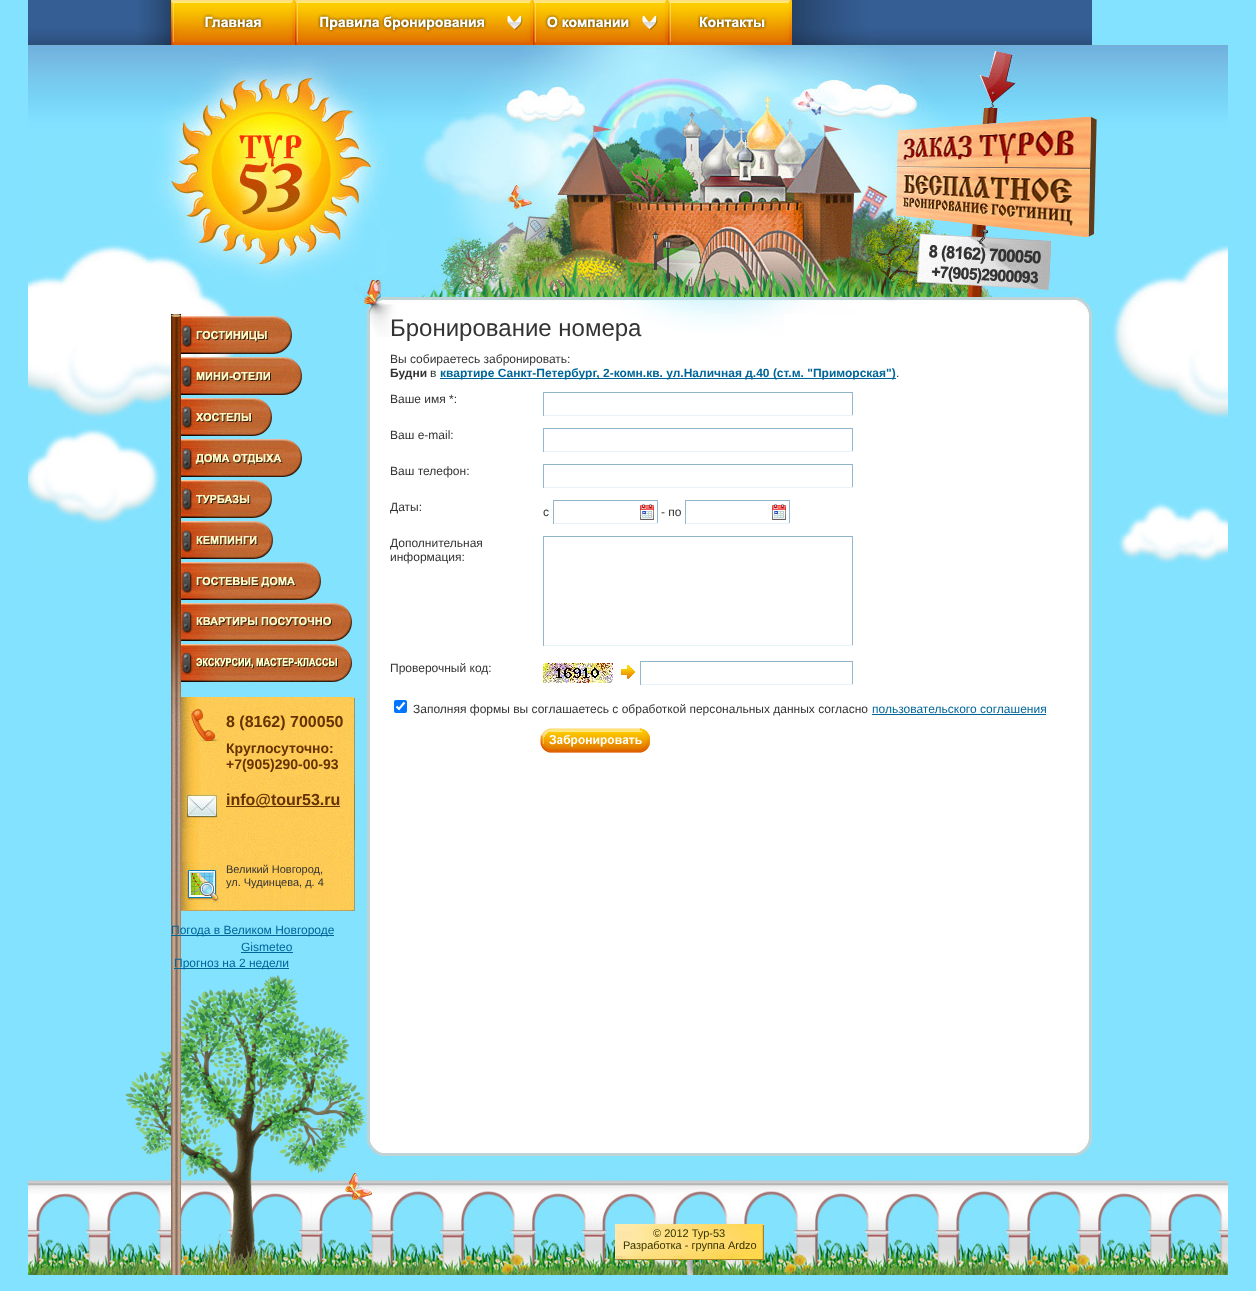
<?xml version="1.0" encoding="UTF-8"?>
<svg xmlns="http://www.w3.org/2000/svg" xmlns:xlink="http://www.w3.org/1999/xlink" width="1256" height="1291">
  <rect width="100%" height="100%" fill="#83e2ff" />
  <image x="171" y="570" width="196" height="565" xlink:href="image1.png" />
  <image x="28" y="314" width="1200" height="256" xlink:href="image2.png" />
  <image x="28" y="0" width="143" height="45" xlink:href="image3.png" />
  <image x="171" y="0" width="124" height="45" xlink:href="image4.png" />
  <image x="295" y="0" width="238" height="45" xlink:href="image5.png" />
  <image x="533" y="0" width="135" height="45" xlink:href="image6.png" />
  <image x="668" y="0" width="124" height="45" xlink:href="image7.png" />
  <image x="792" y="0" width="300" height="45" xlink:href="image8.png" />
  <rect x="1089" y="313" width="3" height="824" fill="#bfd3d5" />
  <rect x="367" y="313" width="3" height="824" fill="#bfd3d5" />
  <image x="28" y="45" width="1200" height="269" xlink:href="image9.png" />
  <rect x="370" y="314" width="719" height="821" fill="#ffffff" />
  <image x="370" y="314" width="414" height="23" xlink:href="image10.png" />
  <rect x="440" y="378" width="456" height="1" fill="#006699" />
  <rect x="543" y="392" width="310" height="1" fill="#90b3c9" />
  <rect x="852" y="392" width="1" height="24" fill="#93b7cd" />
  <rect x="543" y="415" width="310" height="1" fill="#e5f2f9" />
  <rect x="543" y="392" width="1" height="24" fill="#93b7cd" />
  <rect x="543" y="428" width="310" height="1" fill="#90b3c9" />
  <rect x="852" y="428" width="1" height="24" fill="#93b7cd" />
  <rect x="543" y="451" width="310" height="1" fill="#e5f2f9" />
  <rect x="543" y="428" width="1" height="24" fill="#93b7cd" />
  <rect x="543" y="464" width="310" height="1" fill="#90b3c9" />
  <rect x="852" y="464" width="1" height="24" fill="#93b7cd" />
  <rect x="543" y="487" width="310" height="1" fill="#e5f2f9" />
  <rect x="543" y="464" width="1" height="24" fill="#93b7cd" />
  <image x="640" y="504" width="14" height="16" xlink:href="image11.png" />
  <rect x="553" y="500" width="105" height="1" fill="#90b3c9" />
  <rect x="657" y="500" width="1" height="24" fill="#93b7cd" />
  <rect x="553" y="523" width="105" height="1" fill="#e5f2f9" />
  <rect x="553" y="500" width="1" height="24" fill="#93b7cd" />
  <image x="772" y="504" width="14" height="16" xlink:href="image11.png" />
  <rect x="685" y="500" width="105" height="1" fill="#90b3c9" />
  <rect x="789" y="500" width="1" height="24" fill="#93b7cd" />
  <rect x="685" y="523" width="105" height="1" fill="#e5f2f9" />
  <rect x="685" y="500" width="1" height="24" fill="#93b7cd" />
  <rect x="543" y="536" width="310" height="1" fill="#90b3c9" />
  <rect x="852" y="536" width="1" height="110" fill="#93b7cd" />
  <rect x="543" y="645" width="310" height="1" fill="#e5f2f9" />
  <rect x="543" y="536" width="1" height="110" fill="#93b7cd" />
  <image x="543" y="663" width="92" height="20" xlink:href="image12.png" />
  <rect x="640" y="661" width="213" height="1" fill="#90b3c9" />
  <rect x="852" y="661" width="1" height="24" fill="#93b7cd" />
  <rect x="640" y="684" width="213" height="1" fill="#e5f2f9" />
  <rect x="640" y="661" width="1" height="24" fill="#93b7cd" />
  <rect x="394" y="700" width="13" height="13" rx="2" fill="#0075ff" />
  <path d="M 396.5 706.5 l 2.5 2.5 l 5.5 -6.5" fill="none" stroke="#ffffff" stroke-width="2.1" />
  <rect x="872" y="714" width="174" height="1" fill="#006699" />
  <image x="540" y="728" width="110" height="25" xlink:href="image13.png" />
  <image x="125" y="975" width="241" height="160" xlink:href="image14.png" />
  <image x="171" y="314" width="10" height="383" xlink:href="image15.png" />
  <image x="181" y="316" width="111" height="38" xlink:href="image16.png" />
  <image x="181" y="357" width="121" height="38" xlink:href="image17.png" />
  <image x="181" y="398" width="91" height="38" xlink:href="image18.png" />
  <image x="181" y="439" width="121" height="38" xlink:href="image19.png" />
  <image x="181" y="480" width="91" height="38" xlink:href="image20.png" />
  <image x="181" y="521" width="92" height="38" xlink:href="image21.png" />
  <image x="181" y="562" width="140" height="38" xlink:href="image22.png" />
  <image x="181" y="603" width="171" height="38" xlink:href="image23.png" />
  <image x="181" y="644" width="171" height="38" xlink:href="image24.png" />
  <image x="171" y="697" width="184" height="214" xlink:href="image25.png" />
  <rect x="226" y="806" width="114" height="1" fill="#663300" />
  <rect x="171" y="935" width="163" height="1" fill="#006699" />
  <rect x="241" y="952" width="52" height="1" fill="#006699" />
  <rect x="174" y="968" width="115" height="1" fill="#006699" />
  <image x="28" y="1135" width="1200" height="140" xlink:href="image26.png" />
  <text x="390" y="336" style="font-family: Liberation Sans; font-size: 24px; fill: #333333">Бронирование номера</text>
  <text x="390" y="363" style="font-family: Liberation Sans; font-size: 12px; fill: #333333">Вы собираетесь забронировать:</text>
  <text x="390" y="377" style="font-family: Liberation Sans; font-size: 12px; font-weight: bold; fill: #333333">Будни</text>
  <text x="430" y="377" style="font-family: Liberation Sans; font-size: 12px; fill: #333333">в</text>
  <text x="440" y="377" style="font-family: Liberation Sans; font-size: 12px; font-weight: bold; fill: #006699">квартире Санкт-Петербург, 2-комн.кв. ул.Наличная д.40 (ст.м. "Приморская")</text>
  <text x="896" y="377" style="font-family: Liberation Sans; font-size: 12px; fill: #333333">.</text>
  <text x="390" y="403" style="font-family: Liberation Sans; font-size: 12px; fill: #333333">Ваше имя *:</text>
  <text x="390" y="439" style="font-family: Liberation Sans; font-size: 12px; fill: #333333">Ваш e-mail:</text>
  <text x="390" y="475" style="font-family: Liberation Sans; font-size: 12px; fill: #333333">Ваш телефон:</text>
  <text x="390" y="511" style="font-family: Liberation Sans; font-size: 12px; fill: #333333">Даты:</text>
  <text x="543" y="516" style="font-family: Liberation Sans; font-size: 12px; fill: #333333">с</text>
  <text x="661" y="516" style="font-family: Liberation Sans; font-size: 12px; fill: #333333">- по</text>
  <text x="390" y="547" style="font-family: Liberation Sans; font-size: 12px; fill: #333333">Дополнительная</text>
  <text x="390" y="561" style="font-family: Liberation Sans; font-size: 12px; fill: #333333">информация:</text>
  <text x="390" y="672" style="font-family: Liberation Sans; font-size: 12px; fill: #333333">Проверочный код:</text>
  <text x="413" y="713" style="font-family: Liberation Sans; font-size: 12px; fill: #333333">Заполняя формы вы соглашаетесь с обработкой персональных данных согласно</text>
  <text x="872" y="713" style="font-family: Liberation Sans; font-size: 12px; fill: #006699">пользовательского соглашения</text>
  <text x="226" y="727" style="font-family: Liberation Sans; font-size: 16px; font-weight: bold; fill: #663300">8 (8162) 700050</text>
  <text x="226" y="753" style="font-family: Liberation Sans; font-size: 14px; font-weight: bold; fill: #663300">Круглосуточно:</text>
  <text x="226" y="769" style="font-family: Liberation Sans; font-size: 14px; font-weight: bold; fill: #663300">+7(905)290-00-93</text>
  <text x="226" y="805" style="font-family: Liberation Sans; font-size: 16px; font-weight: bold; fill: #663300">info@tour53.ru</text>
  <text x="226" y="873" style="font-family: Liberation Sans; font-size: 11px; fill: #333333">Великий Новгород,</text>
  <text x="226" y="886" style="font-family: Liberation Sans; font-size: 11px; fill: #333333">ул. Чудинцева, д. 4</text>
  <text x="171" y="934" style="font-family: Liberation Sans; font-size: 12px; fill: #006699">Погода в Великом Новгороде</text>
  <text x="241" y="951" style="font-family: Liberation Sans; font-size: 12px; fill: #006699">Gismeteo</text>
  <text x="174" y="967" style="font-family: Liberation Sans; font-size: 12px; fill: #006699">Прогноз на 2 недели</text>
  <text x="653" y="1237" style="font-family: Liberation Sans; font-size: 11px; fill: #333300">© 2012 Тур-53</text>
  <text x="623" y="1249" style="font-family: Liberation Sans; font-size: 11px; fill: #333300">Разработка - группа Ardzo</text>
</svg>
